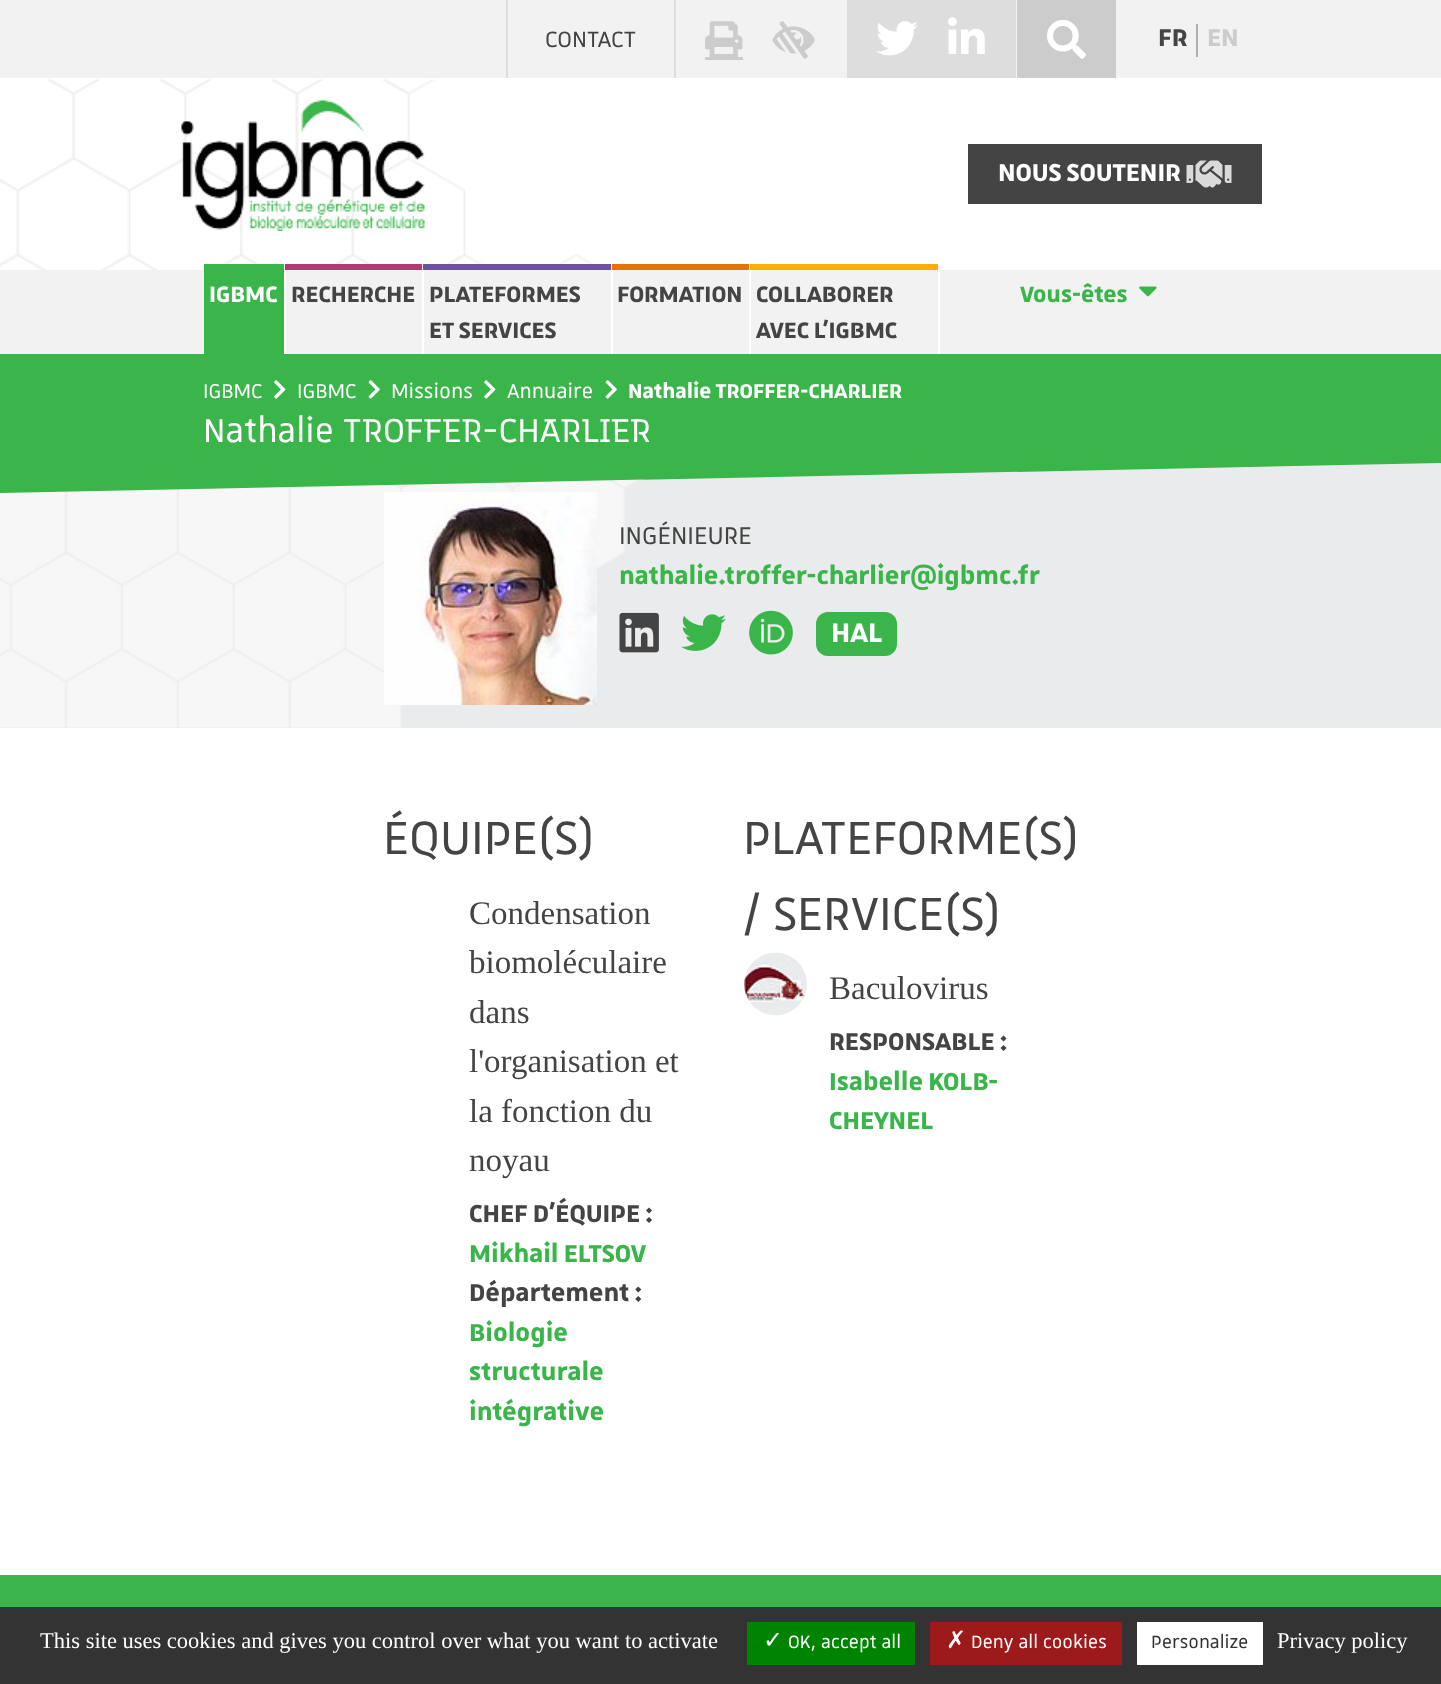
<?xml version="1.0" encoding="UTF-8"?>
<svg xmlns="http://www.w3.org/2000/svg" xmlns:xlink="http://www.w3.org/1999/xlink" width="1441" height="1684">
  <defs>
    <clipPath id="clip1"><rect y="354" width="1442" height="146" /></clipPath>
  </defs>
  <rect width="100%" height="100%" fill="#ffffff" />
  <rect width="1441" height="78" fill="#f2f2f2" />
  <rect x="674" width="2" height="78" fill="#dddddd" />
  <rect x="506" width="2" height="78" fill="#dddddd" />
  <image x="705" y="21" width="38" height="36" xlink:href="image1.png" />
  <rect x="705" y="57" width="38" height="3" fill="#cccccc" />
  <image x="772" y="21" width="43" height="38" xlink:href="image2.png" />
  <rect x="847" width="169" height="78" fill="#dddddd" />
  <image x="876" y="21" width="42" height="35" xlink:href="image3.png" />
  <image x="948" y="17" width="37" height="37" xlink:href="image4.png" />
  <rect x="1017" width="99" height="78" fill="#cccccc" />
  <image x="1047" y="19" width="39" height="40" xlink:href="image5.png" />
  <rect x="1196" y="24" width="2" height="33" fill="#afafaf" />
  <image x="0" y="79" width="596" height="191" xlink:href="image6.png" />
  <image x="181" y="100" width="244" height="131" xlink:href="image7.png" />
  <rect x="968" y="144" width="294" height="60" fill="#444444" />
  <image x="1186" y="160" width="46" height="28" xlink:href="image8.png" />
  <rect y="270" width="1441" height="84" fill="#f2f2f2" />
  <rect x="284" y="270" width="2" height="84" fill="#ffffff" />
  <rect x="204" y="264" width="80" height="90" fill="#39b54a" />
  <rect x="422" y="270" width="2" height="84" fill="#ffffff" />
  <rect x="285" y="264" width="137" height="6" fill="#b53970" />
  <rect x="611" y="270" width="2" height="84" fill="#ffffff" />
  <rect x="423" y="264" width="188" height="6" fill="#6b549d" />
  <rect x="749" y="270" width="2" height="84" fill="#ffffff" />
  <rect x="612" y="264" width="137" height="6" fill="#e67200" />
  <rect x="938" y="270" width="2" height="84" fill="#ffffff" />
  <rect x="750" y="264" width="188" height="6" fill="#ffae00" />
  <image x="1139" y="286" width="18" height="11" xlink:href="image9.png" />
  <rect y="463" width="1441" height="265" fill="#eaebec" />
  <image x="0" y="479" width="644" height="249" xlink:href="image12.png" />
  <image x="384" y="492" width="213" height="213" xlink:href="image13.png" />
  <g clip-path="url(#clip1)">
    <path d="M -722 363 l 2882 -60 l 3 145 l -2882 60 z" fill="#39b54a" />
  </g>
  <image x="274" y="380" width="12" height="19" xlink:href="image10.png" />
  <image x="368" y="380" width="12" height="19" xlink:href="image11.png" />
  <image x="484" y="380" width="12" height="19" xlink:href="image10.png" />
  <image x="605" y="380" width="12" height="19" xlink:href="image11.png" />
  <image x="619" y="612" width="40" height="41" xlink:href="image14.png" />
  <image x="681" y="614" width="45" height="37" xlink:href="image15.png" />
  <image x="749" y="610" width="44" height="45" xlink:href="image16.png" />
  <rect x="816" y="612" width="81" height="44" rx="12" fill="#39b54a" />
  <image x="744" y="952" width="63" height="64" xlink:href="image17.png" />
  <rect y="1575" width="1441" height="32" fill="#39b54a" />
  <rect y="1607" width="1441" height="77" fill="#333333" />
  <rect x="747" y="1622" width="168" height="43" fill="#008300" />
  <rect x="930" y="1622" width="192" height="43" fill="#9c1a1a" />
  <rect x="1137" y="1622" width="126" height="43" fill="#ffffff" />
  <text x="545" y="47" style="font-family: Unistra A; font-size: 30px; fill: #444444">CONTACT</text>
  <text x="1158" y="46" style="font-family: Unistra A; font-size: 32.8px; font-weight: bold; fill: #444444">FR</text>
  <text x="1207" y="46" style="font-family: Unistra A; font-size: 32.8px; font-weight: bold; fill: #cccccc">EN</text>
  <text x="998" y="181" style="font-family: Unistra A; font-size: 32.8px; font-weight: bold; fill: #ffffff">NOUS SOUTENIR</text>
  <text x="209" y="302" style="font-family: Unistra A; font-size: 30px; font-weight: bold; fill: #ffffff">IGBMC</text>
  <text x="291" y="302" style="font-family: Unistra A; font-size: 30px; font-weight: bold; fill: #444444">RECHERCHE</text>
  <text x="429" y="302" style="font-family: Unistra A; font-size: 30px; font-weight: bold; fill: #444444">PLATEFORMES</text>
  <text x="429" y="338" style="font-family: Unistra A; font-size: 30px; font-weight: bold; fill: #444444">ET SERVICES</text>
  <text x="617" y="302" style="font-family: Unistra A; font-size: 30px; font-weight: bold; fill: #444444">FORMATION</text>
  <text x="756" y="302" style="font-family: Unistra A; font-size: 30px; font-weight: bold; fill: #444444">COLLABORER</text>
  <text x="756" y="338" style="font-family: Unistra A; font-size: 30px; font-weight: bold; fill: #444444">AVEC L'IGBMC</text>
  <text x="1020" y="302" style="font-family: Unistra A; font-size: 30px; font-weight: bold; fill: #39b54a">Vous-êtes</text>
  <text x="203" y="398" style="font-family: Unistra A; font-size: 27px; fill: #ffffff">IGBMC</text>
  <text x="297" y="398" style="font-family: Unistra A; font-size: 27px; fill: #ffffff">IGBMC</text>
  <text x="391" y="398" style="font-family: Unistra A; font-size: 27px; fill: #ffffff">Missions</text>
  <text x="507" y="398" style="font-family: Unistra A; font-size: 27px; fill: #ffffff">Annuaire</text>
  <text x="628" y="398" style="font-family: Unistra A; font-size: 27px; font-weight: bold; fill: #ffffff">Nathalie TROFFER-CHARLIER</text>
  <text x="203" y="442" style="font-family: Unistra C; font-size: 45px; fill: #ffffff">Nathalie TROFFER-CHARLIER</text>
  <text x="619" y="544" style="font-family: Unistra A; font-size: 32.8px; fill: #444444">INGÉNIEURE</text>
  <text x="619" y="584" style="font-family: Unistra A; font-size: 32.8px; font-weight: bold; fill: #39b54a">nathalie.troffer-charlier@igbmc.fr</text>
  <text x="831" y="642" style="font-family: Unistra A; font-size: 36px; font-weight: bold; fill: #ffffff">HAL</text>
  <text x="383" y="854" style="font-family: Unistra A; font-size: 63px; fill: #444444">ÉQUIPE(S)</text>
  <text x="469" y="924" style="font-family: Liberation Serif; font-size: 33px; fill: #444444">Condensation</text>
  <text x="469" y="973" style="font-family: Liberation Serif; font-size: 33px; fill: #444444">biomoléculaire</text>
  <text x="469" y="1023" style="font-family: Liberation Serif; font-size: 33px; fill: #444444">dans</text>
  <text x="469" y="1072" style="font-family: Liberation Serif; font-size: 33px; fill: #444444">l'organisation et</text>
  <text x="469" y="1122" style="font-family: Liberation Serif; font-size: 33px; fill: #444444">la fonction du</text>
  <text x="469" y="1171" style="font-family: Liberation Serif; font-size: 33px; fill: #444444">noyau</text>
  <text x="469" y="1222" style="font-family: Unistra A; font-size: 32.8px; font-weight: bold; fill: #444444">CHEF D'ÉQUIPE :</text>
  <text x="469" y="1262" style="font-family: Unistra A; font-size: 32.8px; font-weight: bold; fill: #39b54a">Mikhail ELTSOV</text>
  <text x="469" y="1301" style="font-family: Unistra A; font-size: 32.8px; font-weight: bold; fill: #444444">Département :</text>
  <text x="469" y="1341" style="font-family: Unistra A; font-size: 32.8px; font-weight: bold; fill: #39b54a">Biologie</text>
  <text x="469" y="1380" style="font-family: Unistra A; font-size: 32.8px; font-weight: bold; fill: #39b54a">structurale</text>
  <text x="469" y="1420" style="font-family: Unistra A; font-size: 32.8px; font-weight: bold; fill: #39b54a">intégrative</text>
  <text x="743" y="854" style="font-family: Unistra A; font-size: 63px; fill: #444444">PLATEFORME(S)</text>
  <text x="743" y="930" style="font-family: Unistra A; font-size: 63px; fill: #444444">/ SERVICE(S)</text>
  <text x="829" y="999" style="font-family: Liberation Serif; font-size: 33px; fill: #444444">Baculovirus</text>
  <text x="829" y="1050" style="font-family: Unistra A; font-size: 32.8px; font-weight: bold; fill: #444444">RESPONSABLE :</text>
  <text x="829" y="1090" style="font-family: Unistra A; font-size: 32.8px; font-weight: bold; fill: #39b54a">Isabelle KOLB-</text>
  <text x="829" y="1129" style="font-family: Unistra A; font-size: 32.8px; font-weight: bold; fill: #39b54a">CHEYNEL</text>
  <text x="40" y="1648" style="font-family: Liberation Serif; font-size: 22.5px; fill: #ffffff">This site uses cookies and gives you control over what you want to activate</text>
  <text x="763" y="1648" style="font-family: DejaVu Sans; font-size: 24px; fill: #ffffff">✓</text>
  <text x="788" y="1648" style="font-family: Unistra A; font-size: 24px; fill: #ffffff">OK, accept all</text>
  <text x="946" y="1648" style="font-family: DejaVu Sans; font-size: 24px; fill: #ffffff">✗</text>
  <text x="971" y="1648" style="font-family: Unistra A; font-size: 24px; fill: #ffffff">Deny all cookies</text>
  <text x="1151" y="1648" style="font-family: Unistra A; font-size: 24px; fill: #333333">Personalize</text>
  <text x="1277" y="1648" style="font-family: Liberation Serif; font-size: 22.5px; fill: #ffffff">Privacy policy</text>
</svg>
